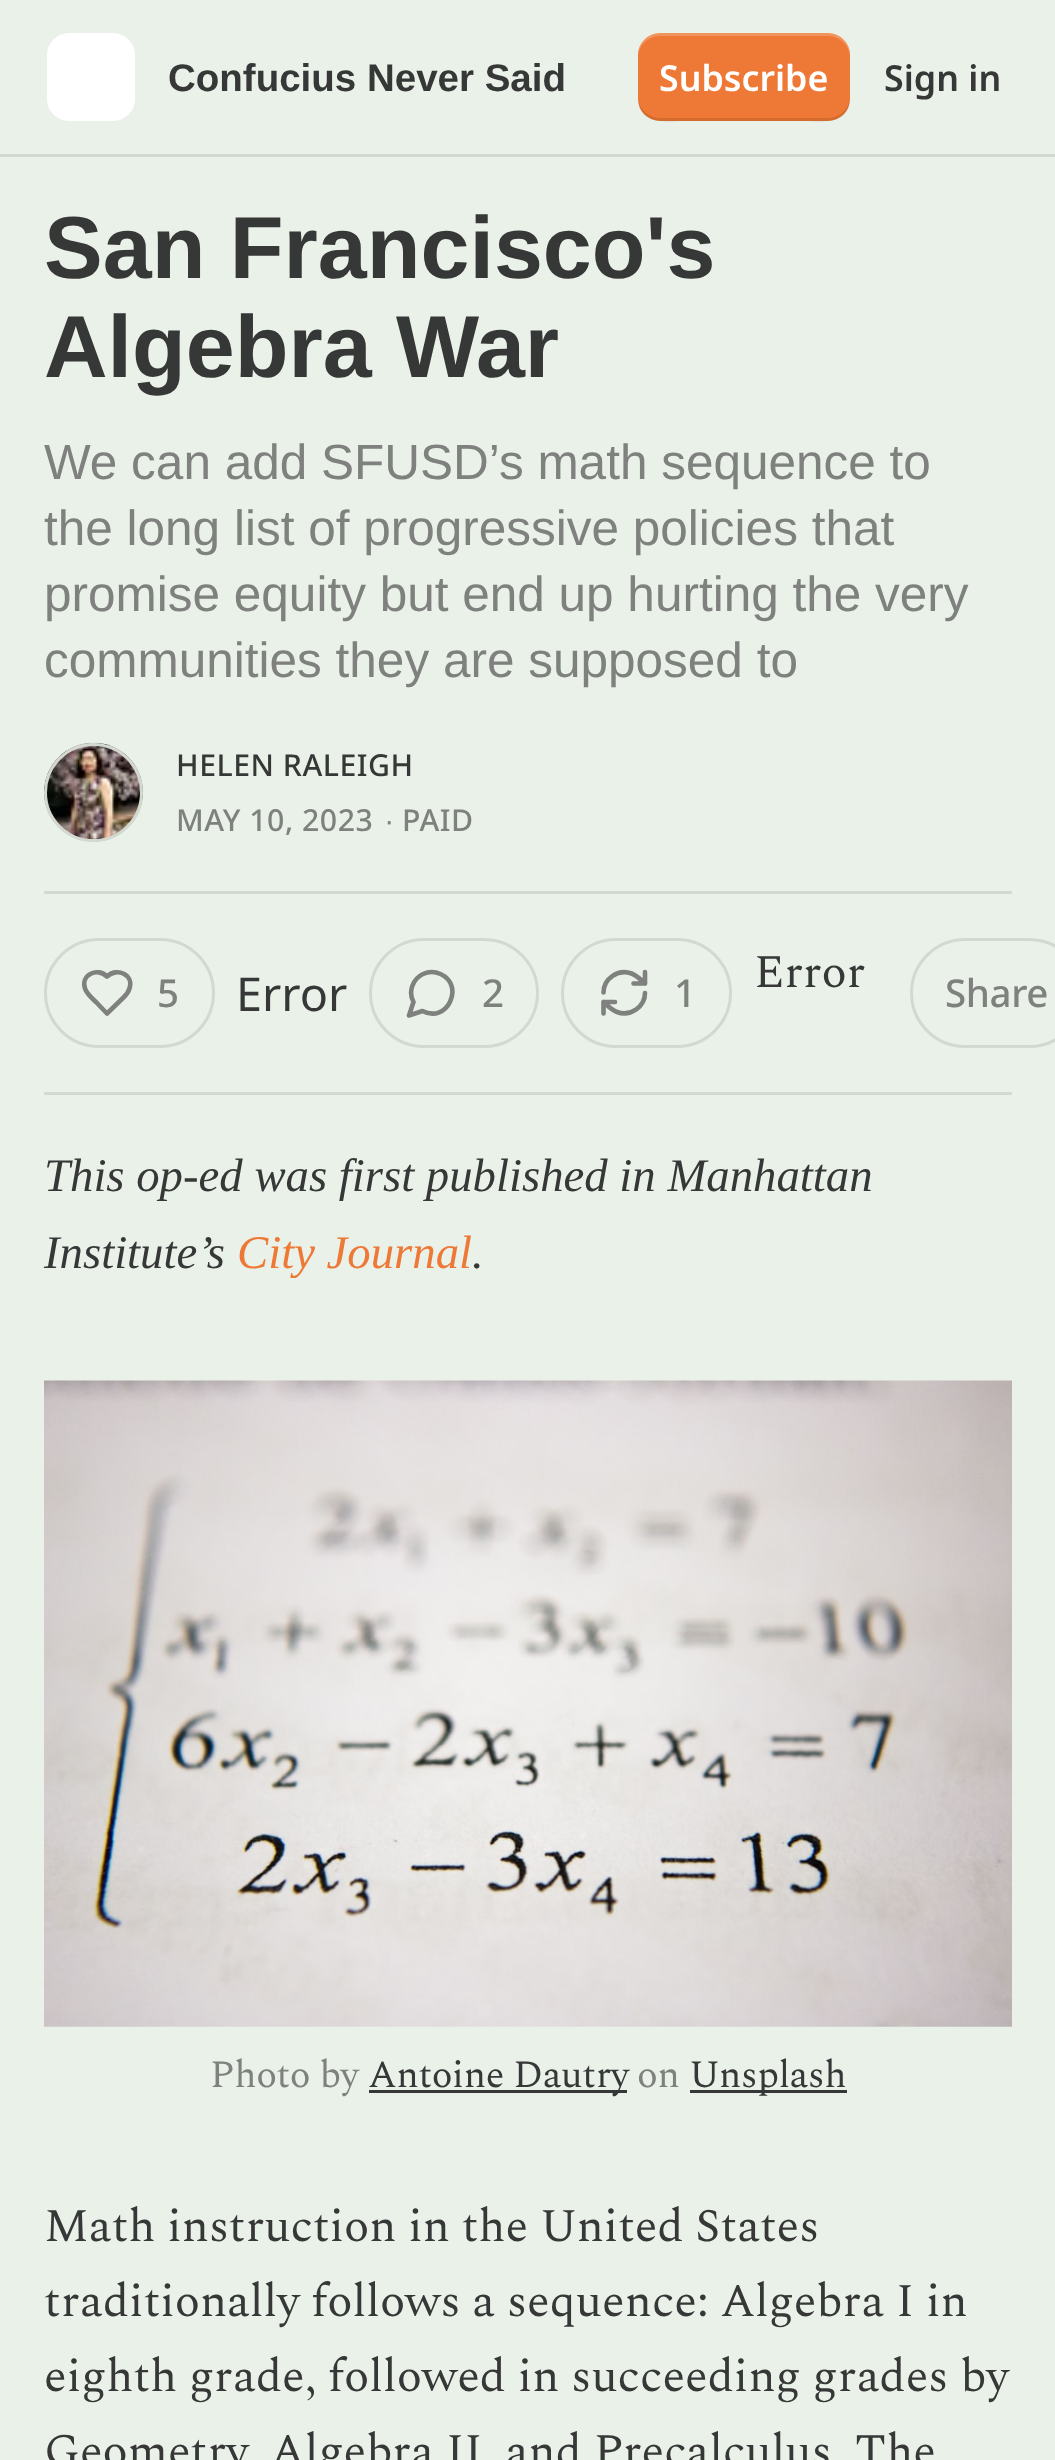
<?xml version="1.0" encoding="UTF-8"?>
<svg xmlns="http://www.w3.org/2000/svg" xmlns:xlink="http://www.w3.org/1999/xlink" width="1055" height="2460">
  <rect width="100%" height="100%" fill="#eaf1e8" />
  <rect y="154" width="1055" height="3" fill="#d3d9d1" />
  <rect x="47" y="33" width="88" height="88" rx="22" fill="#ffffff" />
  <rect x="638" y="33" width="212" height="88" rx="22" fill="#ee7835" />
  <path d="M 638 96 c 0 31 28 25 50 25 h 112 c 22 0 50 6 50 -25 c 0 12 -10 22 -22 22 h -168 c -12 0 -22 -10 -22 -22 z" fill="#000000" fill-opacity="0.1" />
  <path d="M 660 36 h 168 c 12 0 22 10 22 22 c 0 -31 -28 -25 -50 -25 h -112 c -22 0 -50 -6 -50 25 c 0 -12 10 -22 22 -22 z" fill="#ffffff" fill-opacity="0.2" />
  <circle cx="93.5" cy="792.5" r="48" fill="none" stroke="#d3d9d1" stroke-width="3" />
  <image x="44" y="742" width="99" height="100" xlink:href="image1.png" />
  <circle cx="93.5" cy="792.5" r="48" fill="none" stroke="#d3d9d1" stroke-width="3" />
  <rect x="44" y="891" width="968" height="3" fill="#d3d9d1" />
  <rect x="44" y="1092" width="968" height="3" fill="#d3d9d1" />
  <rect x="45.5" y="939.5" width="168" height="107" rx="53.5" fill="none" stroke="#d3d9d1" stroke-width="3" />
  <path d="M 123.5 997.5 c 2.5 -2.5 5 -5.5 6 -9 c 4.5 -14 -12.5 -21.5 -22.5 -12 c -9.5 -9.5 -26.5 -2 -22 12 c 2 6 7.5 10 11.5 14 l 10.5 11 z" fill="none" stroke="#7e817e" stroke-width="4.6" stroke-linecap="round" stroke-linejoin="round" />
  <rect x="370.5" y="939.5" width="167" height="107" rx="53.5" fill="none" stroke="#d3d9d1" stroke-width="3" />
  <path d="M 422.5 1011 c 24.5 13 43 -25.5 18 -37 c -5.5 -2.5 -12 -2.5 -17.5 0 c -10.5 5 -15 18 -9.5 28 l -4.5 13.5 z" fill="none" stroke="#7e817e" stroke-width="4.6" stroke-linecap="round" stroke-linejoin="round" />
  <rect x="562.5" y="939.5" width="168" height="107" rx="53.5" fill="none" stroke="#d3d9d1" stroke-width="3" />
  <path d="M 645 972 v 11.5 m 0 0 h -11.5 m 11.5 0 c -4 -3.5 -8 -8 -13.5 -10 c -13 -5 -28 5 -28 19 m 0 21 v -11.5 m 0 0 h 11.5 m -11.5 0 c 4 3.5 8 8 13.5 10 c 13 5 28 -5 28 -19" fill="none" stroke="#7e817e" stroke-width="4.6" stroke-linecap="round" stroke-linejoin="round" />
  <rect x="911.5" y="939.5" width="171" height="107" rx="53.5" fill="none" stroke="#d3d9d1" stroke-width="3" />
  <image x="44" y="1380" width="968" height="647" xlink:href="image2.png" />
  <rect x="369" y="2090" width="258" height="3" fill="#363737" />
  <rect x="690" y="2090" width="157" height="3" fill="#363737" />
  <text x="168" y="91" style="font-family: Liberation Sans; font-size: 38.5px; font-weight: bold; fill: #363737">Confucius Never Said</text>
  <text x="659" y="91" style="font-family: Noto Sans; font-size: 35.75px; font-weight: 600; fill: #ffffff">Subscribe</text>
  <text x="884" y="91" style="font-family: Noto Sans; font-size: 35.75px; font-weight: 600; fill: #363737">Sign in</text>
  <text x="44" y="278" style="font-family: Liberation Sans; font-size: 88px; font-weight: bold; fill: #363737">San Francisco's</text>
  <text x="44" y="377" style="font-family: Liberation Sans; font-size: 88px; font-weight: bold; fill: #363737">Algebra War</text>
  <text x="44" y="479" style="font-family: Liberation Sans; font-size: 49.5px; fill: #7e817e">We can add SFUSD’s math sequence to</text>
  <text x="44" y="545" style="font-family: Liberation Sans; font-size: 49.5px; fill: #7e817e">the long list of progressive policies that</text>
  <text x="44" y="611" style="font-family: Liberation Sans; font-size: 49.5px; fill: #7e817e">promise equity but end up hurting the very</text>
  <text x="44" y="677" style="font-family: Liberation Sans; font-size: 49.5px; fill: #7e817e">communities they are supposed to</text>
  <text x="176" y="776" style="font-family: Noto Sans; font-size: 30.25px; font-weight: 500; letter-spacing: 0.5px; fill: #363737">HELEN RALEIGH</text>
  <text x="176" y="831" style="font-family: Noto Sans; font-size: 30.25px; font-weight: 500; letter-spacing: 0.5px; fill: #7e817e">MAY 10, 2023</text>
  <text x="385" y="831" style="font-family: Liberation Sans; font-size: 30.25px; letter-spacing: 0.5px; fill: #7e817e">∙</text>
  <text x="402" y="831" style="font-family: Noto Sans; font-size: 30.25px; font-weight: 500; letter-spacing: 0.5px; fill: #7e817e">PAID</text>
  <text x="754" y="987" style="font-family: Spectral; font-size: 46.75px; fill: #363737">Error</text>
  <text x="157" y="1007" style="font-family: Noto Sans; font-size: 38.5px; font-weight: 500; letter-spacing: -0.4px; fill: #7e817e">5</text>
  <text x="236" y="1011" style="font-family: Noto Sans; font-size: 46.75px; fill: #363737">Error</text>
  <text x="482" y="1007" style="font-family: Noto Sans; font-size: 38.5px; font-weight: 500; letter-spacing: -0.4px; fill: #7e817e">2</text>
  <text x="674" y="1007" style="font-family: Noto Sans; font-size: 38.5px; font-weight: 500; letter-spacing: -0.4px; fill: #7e817e">1</text>
  <text x="945" y="1007" style="font-family: Noto Sans; font-size: 38.5px; font-weight: 500; letter-spacing: -0.4px; fill: #7e817e">Share</text>
  <text x="44" y="1191" style="font-family: Liberation Serif; font-size: 46.75px; font-style: italic; fill: #363737">This op-ed was first published in Manhattan</text>
  <text x="44" y="1268" style="font-family: Liberation Serif; font-size: 46.75px; font-style: italic; fill: #363737">Institute’s</text>
  <text x="237" y="1268" style="font-family: Liberation Serif; font-size: 46.75px; font-style: italic; fill: #ee7835">City Journal</text>
  <text x="472" y="1268" style="font-family: Liberation Serif; font-size: 46.75px; font-style: italic; fill: #363737">.</text>
  <text x="210" y="2087" style="font-family: Spectral; font-size: 38.5px; letter-spacing: -0.4px; fill: #7e817e">Photo by</text>
  <text x="368" y="2087" style="font-family: Spectral; font-size: 38.5px; letter-spacing: -0.4px; fill: #363737">Antoine Dautry</text>
  <text x="637" y="2087" style="font-family: Spectral; font-size: 38.5px; letter-spacing: -0.4px; fill: #7e817e">on</text>
  <text x="689" y="2087" style="font-family: Spectral; font-size: 38.5px; letter-spacing: -0.4px; fill: #363737">Unsplash</text>
  <text x="44" y="2241" style="font-family: Spectral; font-size: 46.75px; fill: #363737">Math instruction in the United States</text>
  <text x="44" y="2316" style="font-family: Spectral; font-size: 46.75px; fill: #363737">traditionally follows a sequence: Algebra I in</text>
  <text x="44" y="2391" style="font-family: Spectral; font-size: 46.75px; fill: #363737">eighth grade, followed in succeeding grades by</text>
  <text x="44" y="2466" style="font-family: Spectral; font-size: 46.75px; fill: #363737">Geometry, Algebra II, and Precalculus. The</text>
</svg>
